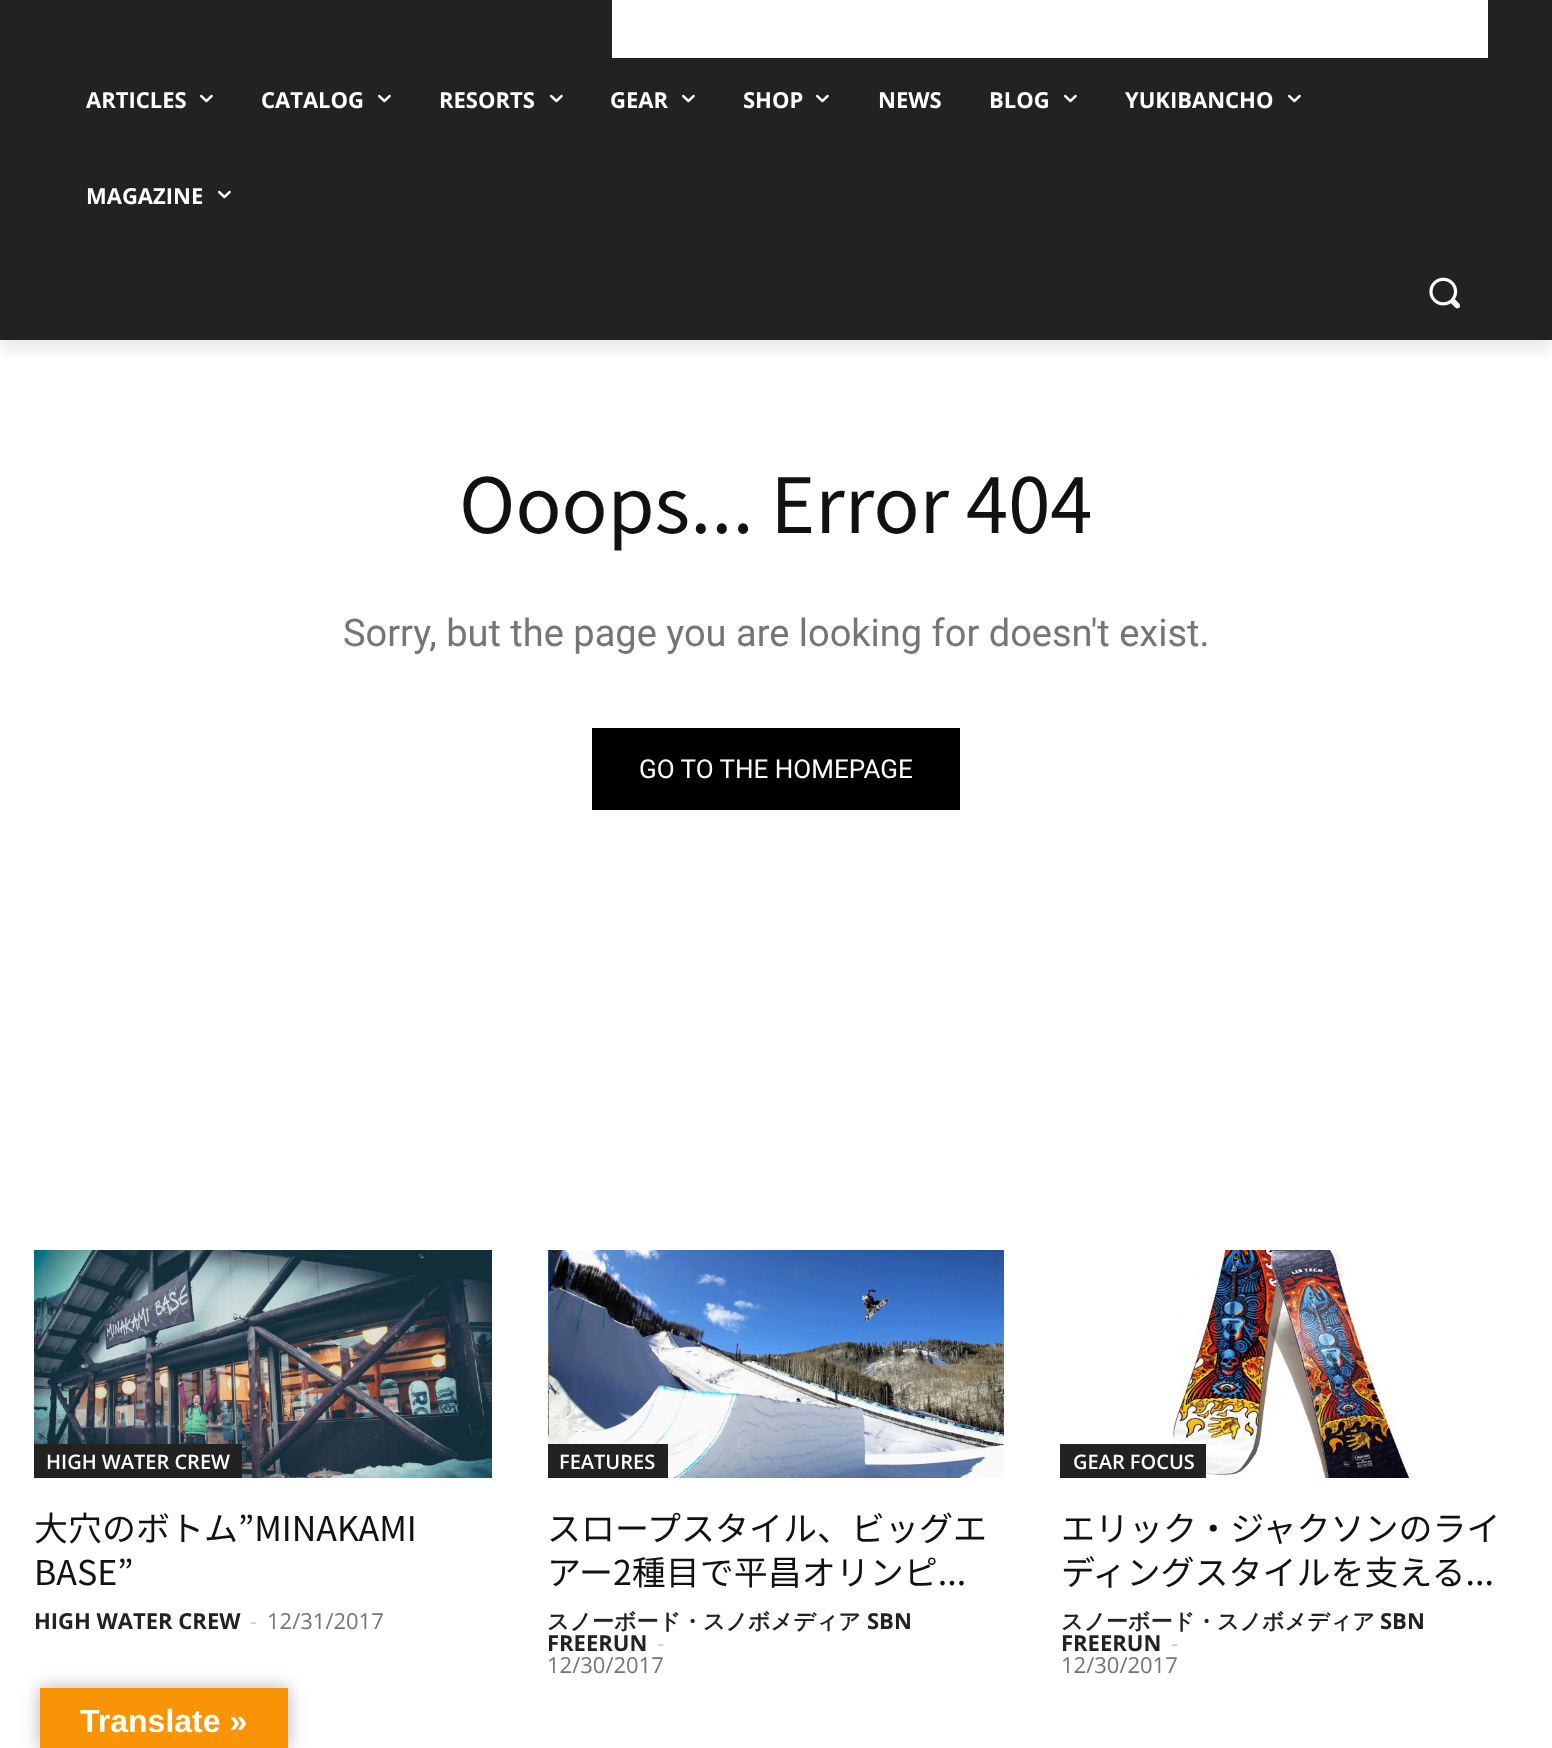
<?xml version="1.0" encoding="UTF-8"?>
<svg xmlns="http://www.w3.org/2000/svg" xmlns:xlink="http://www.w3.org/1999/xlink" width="1552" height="1748">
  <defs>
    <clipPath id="clip1"><rect x="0" y="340" width="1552" height="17" /></clipPath>
  </defs>
  <rect width="100%" height="100%" fill="#ffffff" />
  <rect width="1552" height="340" fill="#222222" />
  <rect x="612" width="876" height="58" fill="#ffffff" />
  <g clip-path="url(#clip1)">
    <rect y="-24" width="1552" height="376" fill="#000000" fill-opacity="0.08" filter="blur(8px)" />
  </g>
  <image x="200" y="94" width="13" height="9" xlink:href="image1.png" />
  <image x="378" y="94" width="13" height="9" xlink:href="image1.png" />
  <image x="550" y="94" width="13" height="9" xlink:href="image1.png" />
  <image x="682" y="94" width="13" height="9" xlink:href="image1.png" />
  <image x="816" y="94" width="13" height="9" xlink:href="image1.png" />
  <image x="1064" y="94" width="13" height="9" xlink:href="image1.png" />
  <image x="1288" y="94" width="13" height="9" xlink:href="image1.png" />
  <image x="218" y="190" width="13" height="9" xlink:href="image1.png" />
  <image x="1429" y="277" width="32" height="32" xlink:href="image2.png" />
  <rect x="592" y="728" width="368" height="82" fill="#000000" />
  <image x="34" y="1250" width="458" height="228" xlink:href="image3.png" />
  <rect x="34" y="1444" width="208" height="34" fill="#222222" />
  <image x="548" y="1250" width="456" height="228" xlink:href="image4.png" />
  <rect x="548" y="1444" width="120" height="34" fill="#222222" />
  <image x="1173" y="1250" width="238" height="228" xlink:href="image5.png" />
  <rect x="1060" y="1444" width="146" height="34" fill="#222222" />
  <rect x="40" y="1688" width="248" height="60" fill="#000000" fill-opacity="0.3" filter="blur(9px)" />
  <rect x="40" y="1688" width="248" height="60" fill="#f89406" />
  <text x="86" y="108" style="font-family: Open Sans; font-size: 22px; font-weight: bold; fill: #ffffff">ARTICLES</text>
  <text x="261" y="108" style="font-family: Open Sans; font-size: 22px; font-weight: bold; fill: #ffffff">CATALOG</text>
  <text x="439" y="108" style="font-family: Open Sans; font-size: 22px; font-weight: bold; fill: #ffffff">RESORTS</text>
  <text x="610" y="108" style="font-family: Open Sans; font-size: 22px; font-weight: bold; fill: #ffffff">GEAR</text>
  <text x="743" y="108" style="font-family: Open Sans; font-size: 22px; font-weight: bold; fill: #ffffff">SHOP</text>
  <text x="878" y="108" style="font-family: Open Sans; font-size: 22px; font-weight: bold; fill: #ffffff">NEWS</text>
  <text x="989" y="108" style="font-family: Open Sans; font-size: 22px; font-weight: bold; fill: #ffffff">BLOG</text>
  <text x="1125" y="108" style="font-family: Open Sans; font-size: 22px; font-weight: bold; fill: #ffffff">YUKIBANCHO</text>
  <text x="86" y="204" style="font-family: Open Sans; font-size: 22px; font-weight: bold; fill: #ffffff">MAGAZINE</text>
  <text x="459" y="533" style="font-family: Noto Sans JP; font-size: 76px; fill: #111111">Ooops... Error 404</text>
  <text x="343" y="646" style="font-family: Roboto; font-size: 38px; fill: #757575">Sorry, but the page you are looking for doesn't exist.</text>
  <text x="639" y="778" style="font-family: Roboto; font-size: 26px; fill: #ffffff">GO TO THE HOMEPAGE</text>
  <text x="46" y="1469" style="font-family: Open Sans; font-size: 20px; font-weight: 600; fill: #ffffff">HIGH WATER CREW</text>
  <text x="34" y="1541" style="font-family: Noto Sans JP; font-size: 34px; fill: #111111">大穴のボトム”MINAKAMI</text>
  <text x="34" y="1585" style="font-family: Noto Sans JP; font-size: 34px; fill: #111111">BASE”</text>
  <text x="34" y="1629" style="font-family: Open Sans; font-size: 22px; font-weight: bold; fill: #222222">HIGH WATER CREW</text>
  <text x="250" y="1629" style="font-family: Open Sans; font-size: 22px; fill: #cccccc">-</text>
  <text x="267" y="1629" style="font-family: Open Sans; font-size: 22px; fill: #757575">12/31/2017</text>
  <text x="559" y="1469" style="font-family: Open Sans; font-size: 20px; font-weight: 600; fill: #ffffff">FEATURES</text>
  <text x="547" y="1541" style="font-family: Noto Sans JP; font-size: 34px; fill: #111111">スロープスタイル、ビッグエ</text>
  <text x="547" y="1585" style="font-family: Noto Sans JP; font-size: 34px; fill: #111111">アー2種目で平昌オリンピ...</text>
  <text x="547" y="1629" style="font-family: WenQuanYi Zen Hei; font-size: 22px; font-weight: bold; fill: #222222">スノーボード・スノボメディア</text>
  <text x="867" y="1629" style="font-family: Open Sans; font-size: 22px; font-weight: bold; fill: #222222">SBN</text>
  <text x="547" y="1651" style="font-family: Open Sans; font-size: 22px; font-weight: bold; fill: #222222">FREERUN</text>
  <text x="657" y="1651" style="font-family: Open Sans; font-size: 22px; fill: #cccccc">-</text>
  <text x="547" y="1673" style="font-family: Open Sans; font-size: 22px; fill: #757575">12/30/2017</text>
  <text x="1073" y="1469" style="font-family: Open Sans; font-size: 20px; font-weight: 600; fill: #ffffff">GEAR FOCUS</text>
  <text x="1061" y="1541" style="font-family: Noto Sans JP; font-size: 34px; fill: #111111">エリック・ジャクソンのライ</text>
  <text x="1061" y="1585" style="font-family: Noto Sans JP; font-size: 34px; fill: #111111">ディングスタイルを支える...</text>
  <text x="1061" y="1629" style="font-family: WenQuanYi Zen Hei; font-size: 22px; font-weight: bold; fill: #222222">スノーボード・スノボメディア</text>
  <text x="1380" y="1629" style="font-family: Open Sans; font-size: 22px; font-weight: bold; fill: #222222">SBN</text>
  <text x="1061" y="1651" style="font-family: Open Sans; font-size: 22px; font-weight: bold; fill: #222222">FREERUN</text>
  <text x="1171" y="1651" style="font-family: Open Sans; font-size: 22px; fill: #cccccc">-</text>
  <text x="1061" y="1673" style="font-family: Open Sans; font-size: 22px; fill: #757575">12/30/2017</text>
  <text x="80" y="1732" style="font-family: Liberation Sans; font-size: 32px; font-weight: bold; fill: #ffffff">Translate »</text>
</svg>
